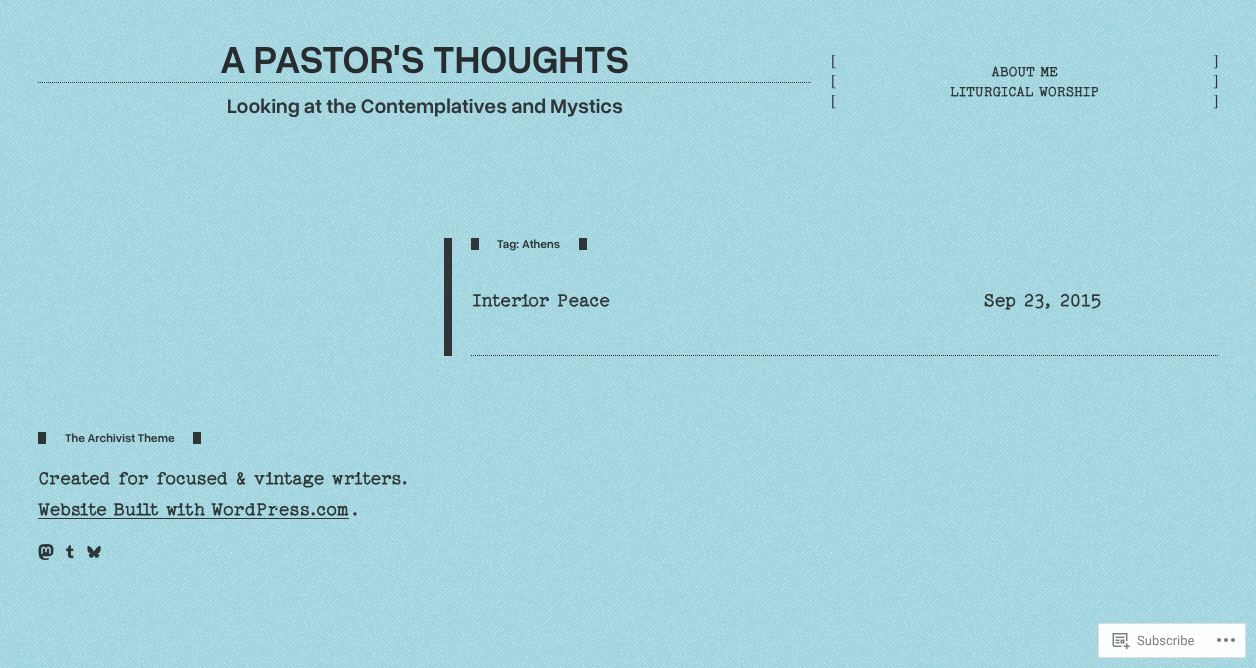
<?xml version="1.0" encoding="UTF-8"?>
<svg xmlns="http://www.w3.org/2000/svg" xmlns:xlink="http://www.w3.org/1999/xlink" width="1256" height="668">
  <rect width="100%" height="100%" fill="#9fd4df" />
  <image x="0" y="0" width="1256" height="668" xlink:href="image1.png" />
  <path d="M 38 82.5 h 774" fill="none" stroke="#19191a" stroke-opacity="0.85" stroke-dasharray="1 1" />
  <rect x="444" y="238" width="8" height="118" fill="#19191a" fill-opacity="0.85" />
  <rect x="579" y="238" width="8" height="12" fill="#19191a" fill-opacity="0.85" />
  <rect x="471" y="238" width="8" height="12" fill="#19191a" fill-opacity="0.85" />
  <path d="M 471 355.5 h 747" fill="none" stroke="#19191a" stroke-opacity="0.85" stroke-dasharray="1 1" />
  <rect x="193" y="432" width="8" height="12" fill="#19191a" fill-opacity="0.85" />
  <rect x="38" y="432" width="8" height="12" fill="#19191a" fill-opacity="0.85" />
  <rect x="38" y="518" width="311" height="1" fill="#19191a" fill-opacity="0.85" />
  <image x="38" y="544" width="16" height="16" xlink:href="image2.png" />
  <image x="66" y="545" width="8" height="14" xlink:href="image3.png" />
  <image x="87" y="546" width="14" height="12" xlink:href="image4.png" />
  <rect x="1098" y="623" width="148" height="35" rx="3" fill="#ffffff" fill-opacity="0.98" />
  <rect x="1098.5" y="623.5" width="147" height="34" rx="2.5" fill="none" stroke="#dcdcde" stroke-opacity="0.98" />
  <image x="1112" y="633" width="18" height="17" xlink:href="image5.png" />
  <image x="1217" y="638" width="18" height="4" xlink:href="image6.png" />
  <text x="220" y="73" style="font-family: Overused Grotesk; font-size: 40px; font-weight: 600; fill: #272c2e">A PASTOR'S THOUGHTS</text>
  <text x="227" y="113" style="font-family: Overused Grotesk; font-size: 20.75px; font-weight: 600; fill: #2e3638">Looking at the Contemplatives and Mystics</text>
  <text x="831" y="66" style="font-family: Liberation Serif; font-size: 16px; fill: #2e3638">[</text>
  <text x="831" y="86" style="font-family: Liberation Serif; font-size: 16px; fill: #2e3638">[</text>
  <text x="831" y="106" style="font-family: Liberation Serif; font-size: 16px; fill: #2e3638">[</text>
  <text x="991" y="76" style="font-family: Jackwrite; font-size: 16px; fill: #2e3638">ABOUT ME</text>
  <text x="950" y="96" style="font-family: Jackwrite; font-size: 16px; fill: #2e3638">LITURGICAL WORSHIP</text>
  <text x="1213" y="66" style="font-family: Liberation Serif; font-size: 16px; fill: #2e3638">]</text>
  <text x="1213" y="86" style="font-family: Liberation Serif; font-size: 16px; fill: #2e3638">]</text>
  <text x="1213" y="106" style="font-family: Liberation Serif; font-size: 16px; fill: #2e3638">]</text>
  <text x="497" y="248" style="font-family: Overused Grotesk; font-size: 12px; font-weight: 600; fill: #2e3638">Tag:</text>
  <text x="522" y="248" style="font-family: Overused Grotesk; font-size: 12px; font-weight: 600; fill: #2e3638">Athens</text>
  <text x="471" y="306" style="font-family: Jackwrite; font-size: 20.75px; fill: #2e3638">Interior Peace</text>
  <text x="983" y="306" style="font-family: Jackwrite; font-size: 20.75px; fill: #2e3638">Sep 23, 2015</text>
  <text x="65" y="442" style="font-family: Overused Grotesk; font-size: 12px; font-weight: 600; fill: #2e3638">The Archivist Theme</text>
  <text x="38" y="484" style="font-family: Jackwrite; font-size: 20.75px; fill: #2e3638">Created for focused &amp; vintage writers.</text>
  <text x="38" y="515" word-spacing="-1" style="font-family: Jackwrite; font-size: 20.75px; fill: #2e3638">Website Built with WordPress.com</text>
  <text x="349" y="515" style="font-family: Jackwrite; font-size: 20.75px; fill: #2e3638">.</text>
  <text x="1137" y="645" style="font-family: Roboto; font-size: 13px; fill: #7b7f84">Subscribe</text>
</svg>
